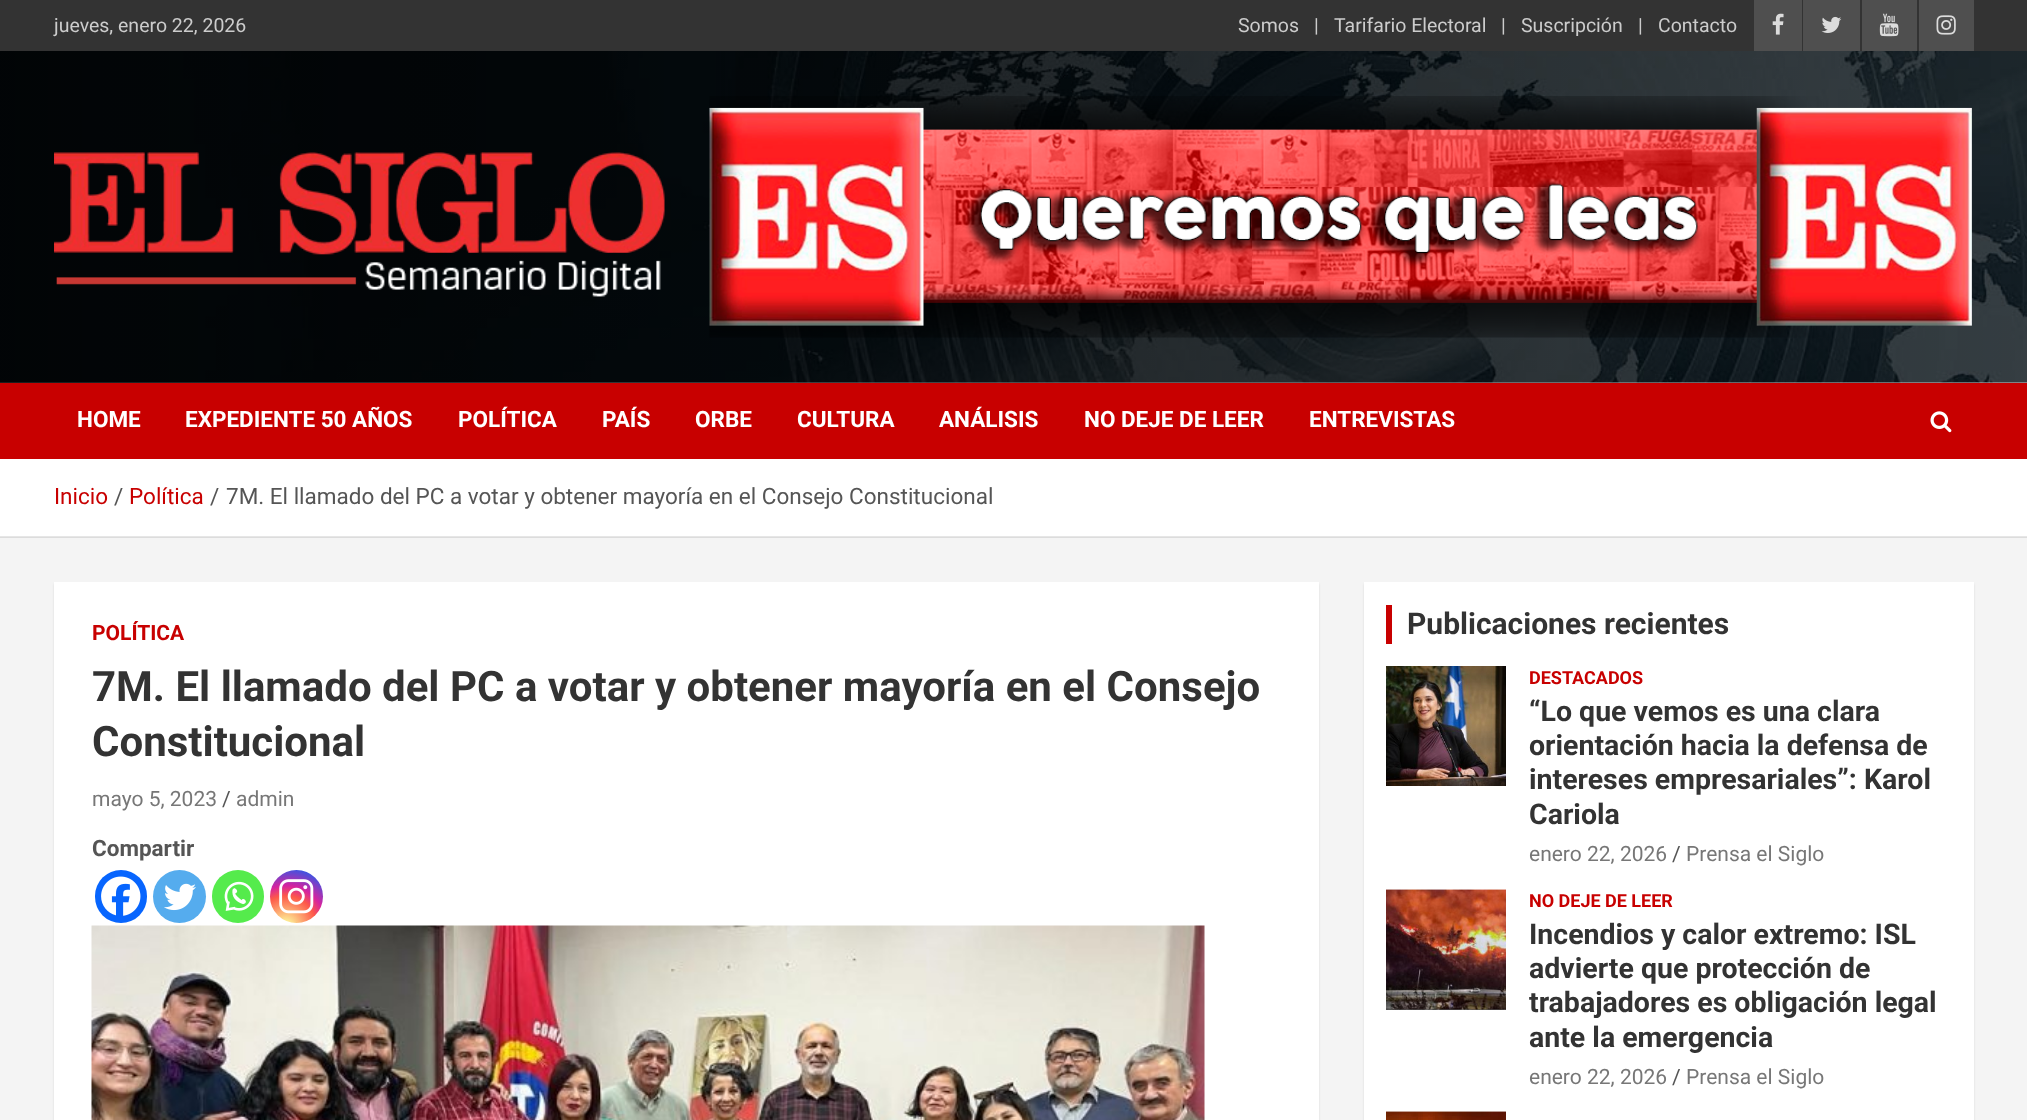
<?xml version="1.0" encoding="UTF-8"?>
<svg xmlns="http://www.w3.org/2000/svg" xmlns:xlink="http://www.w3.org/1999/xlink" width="2027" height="1120">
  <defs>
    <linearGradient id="g1" gradientUnits="userSpaceOnUse" x1="0" y1="217" x2="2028" y2="217"><stop offset="0" stop-color="#000000" stop-opacity="0.8" /><stop offset="1" stop-color="#000000" stop-opacity="0.2" /></linearGradient>
    <radialGradient id="g2" gradientUnits="userSpaceOnUse" cx="286" cy="926" r="67"><stop offset="0" stop-color="#fdf497" /><stop offset="0.05" stop-color="#fdf497" /><stop offset="0.45" stop-color="#fd5949" /><stop offset="0.6" stop-color="#d6249f" /><stop offset="0.9" stop-color="#285aeb" /></radialGradient>
  </defs>
  <rect width="100%" height="100%" fill="#f4f4f4" />
  <rect y="537" width="2027" height="1" fill="#dcdcdc" />
  <rect width="2027" height="51" fill="#333333" />
  <rect x="1754" width="48" height="51" fill="#4f4f4f" />
  <image x="1772" y="13" width="12" height="22" xlink:href="image1.png" />
  <rect x="1803" width="57" height="51" fill="#4f4f4f" />
  <image x="1821" y="16" width="21" height="17" xlink:href="image2.png" />
  <rect x="1862" width="55" height="51" fill="#4f4f4f" />
  <image x="1879" y="13" width="20" height="24" xlink:href="image3.png" />
  <rect x="1919" width="55" height="51" fill="#4f4f4f" />
  <image x="1936" y="15" width="20" height="20" xlink:href="image4.png" />
  <rect y="382" width="2027" height="1" fill="#ffffff" />
  <image x="0" y="51" width="2027" height="332" xlink:href="image5.png" />
  <rect y="51" width="2027" height="332" fill="url(#g1)" />
  <image x="54" y="152" width="611" height="145" xlink:href="image6.png" />
  <image x="709" y="96" width="1263" height="242" xlink:href="image7.png" />
  <rect y="383" width="2027" height="76" fill="#c80000" />
  <image x="1930" y="411" width="22" height="22" xlink:href="image8.png" />
  <rect y="459" width="2027" height="77" fill="#ffffff" />
  <rect y="536" width="2027" height="1" fill="#e6e6e6" />
  <rect x="54" y="584" width="1265" height="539" fill="#000000" fill-opacity="0.1" filter="blur(1px)" />
  <rect x="54" y="582" width="1265" height="538" fill="#ffffff" />
  <rect x="95" y="870" width="52" height="53" rx="26" fill="#0765fe" />
  <image x="101" y="876" width="40" height="40" xlink:href="image9.png" />
  <circle cx="179.5" cy="896.5" r="26.5" fill="#55acee" />
  <image x="164" y="883" width="32" height="28" xlink:href="image10.png" />
  <rect x="212" y="870" width="52" height="53" rx="26" fill="#55eb4c" />
  <image x="224" y="881" width="30" height="30" xlink:href="image11.png" />
  <circle cx="296.5" cy="896.5" r="26.5" fill="url(#g2)" />
  <image x="279" y="879" width="35" height="35" xlink:href="image12.png" />
  <image x="91" y="925" width="1114" height="195" xlink:href="image13.png" />
  <rect x="1364" y="584" width="610" height="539" fill="#000000" fill-opacity="0.1" filter="blur(1px)" />
  <rect x="1364" y="582" width="610" height="538" fill="#ffffff" />
  <rect x="1386" y="605" width="6" height="39" fill="#c80000" />
  <image x="1386" y="666" width="120" height="120" xlink:href="image14.png" />
  <rect x="1386" y="1009" width="120" height="1" fill="#555555" />
  <image x="1386" y="889" width="120" height="121" xlink:href="image15.png" />
  <image x="1386" y="1111" width="120" height="9" xlink:href="image16.png" />
  <text x="54" y="32" style="font-family: Roboto; font-size: 19.5px; fill: #cccccc">jueves, enero 22, 2026</text>
  <text x="1238" y="32" style="font-family: Roboto; font-size: 19.5px; fill: #cccccc">Somos</text>
  <text x="1314" y="32" style="font-family: Roboto; font-size: 19.5px; fill: #cccccc">|</text>
  <text x="1334" y="32" style="font-family: Roboto; font-size: 19.5px; fill: #cccccc">Tarifario Electoral</text>
  <text x="1501" y="32" style="font-family: Roboto; font-size: 19.5px; fill: #cccccc">|</text>
  <text x="1521" y="32" style="font-family: Roboto; font-size: 19.5px; fill: #cccccc">Suscripción</text>
  <text x="1638" y="32" style="font-family: Roboto; font-size: 19.5px; fill: #cccccc">|</text>
  <text x="1658" y="32" style="font-family: Roboto; font-size: 19.5px; fill: #cccccc">Contacto</text>
  <text x="77" y="427" style="font-family: Roboto; font-size: 22.5px; font-weight: bold; fill: #ffffff">HOME</text>
  <text x="185" y="427" style="font-family: Roboto; font-size: 22.5px; font-weight: bold; fill: #ffffff">EXPEDIENTE 50 AÑOS</text>
  <text x="458" y="427" style="font-family: Roboto; font-size: 22.5px; font-weight: bold; fill: #ffffff">POLÍTICA</text>
  <text x="602" y="427" style="font-family: Roboto; font-size: 22.5px; font-weight: bold; fill: #ffffff">PAÍS</text>
  <text x="695" y="427" style="font-family: Roboto; font-size: 22.5px; font-weight: bold; fill: #ffffff">ORBE</text>
  <text x="797" y="427" style="font-family: Roboto; font-size: 22.5px; font-weight: bold; fill: #ffffff">CULTURA</text>
  <text x="939" y="427" style="font-family: Roboto; font-size: 22.5px; font-weight: bold; fill: #ffffff">ANÁLISIS</text>
  <text x="1084" y="427" style="font-family: Roboto; font-size: 22.5px; font-weight: bold; fill: #ffffff">NO DEJE DE LEER</text>
  <text x="1309" y="427" style="font-family: Roboto; font-size: 22.5px; font-weight: bold; fill: #ffffff">ENTREVISTAS</text>
  <text x="54" y="504" style="font-family: Roboto; font-size: 22.5px; fill: #c80000">Inicio</text>
  <text x="114" y="504" style="font-family: Roboto; font-size: 22.5px; fill: #555555">/</text>
  <text x="129" y="504" style="font-family: Roboto; font-size: 22.5px; fill: #c80000">Política</text>
  <text x="210" y="504" style="font-family: Roboto; font-size: 22.5px; fill: #555555">/</text>
  <text x="226" y="504" style="font-family: Roboto; font-size: 22.5px; fill: #555555">7M. El llamado del PC a votar y obtener mayoría en el Consejo Constitucional</text>
  <text x="92" y="640" style="font-family: Roboto; font-size: 21px; font-weight: bold; fill: #c80000">POLÍTICA</text>
  <text x="92" y="701" style="font-family: Roboto; font-size: 42px; font-weight: bold; fill: #333333">7M. El llamado del PC a votar y obtener mayoría en el Consejo</text>
  <text x="92" y="756" style="font-family: Roboto; font-size: 42px; font-weight: bold; fill: #333333">Constitucional</text>
  <text x="92" y="806" style="font-family: Roboto; font-size: 21px; fill: #777777">mayo 5, 2023</text>
  <text x="222" y="806" style="font-family: Roboto; font-size: 21px; fill: #555555">/</text>
  <text x="236" y="806" style="font-family: Roboto; font-size: 21px; fill: #777777">admin</text>
  <text x="92" y="856" style="font-family: Roboto; font-size: 22.5px; font-weight: bold; fill: #555555">Compartir</text>
  <text x="1407" y="634" style="font-family: Roboto; font-size: 30px; font-weight: bold; fill: #333333">Publicaciones recientes</text>
  <text x="1529" y="684" style="font-family: Roboto; font-size: 18px; font-weight: bold; fill: #c80000">DESTACADOS</text>
  <text x="1529" y="721" style="font-family: Roboto; font-size: 28.5px; font-weight: bold; fill: #333333">“Lo que vemos es una clara</text>
  <text x="1529" y="755" style="font-family: Roboto; font-size: 28.5px; font-weight: bold; fill: #333333">orientación hacia la defensa de</text>
  <text x="1529" y="789" style="font-family: Roboto; font-size: 28.5px; font-weight: bold; fill: #333333">intereses empresariales”: Karol</text>
  <text x="1529" y="824" style="font-family: Roboto; font-size: 28.5px; font-weight: bold; fill: #333333">Cariola</text>
  <text x="1529" y="861" style="font-family: Roboto; font-size: 21px; fill: #777777">enero 22, 2026</text>
  <text x="1672" y="861" style="font-family: Roboto; font-size: 21px; fill: #555555">/</text>
  <text x="1686" y="861" style="font-family: Roboto; font-size: 21px; fill: #777777">Prensa el Siglo</text>
  <text x="1529" y="907" style="font-family: Roboto; font-size: 18px; font-weight: bold; fill: #c80000">NO DEJE DE LEER</text>
  <text x="1529" y="944" style="font-family: Roboto; font-size: 28.5px; font-weight: bold; fill: #333333">Incendios y calor extremo: ISL</text>
  <text x="1529" y="978" style="font-family: Roboto; font-size: 28.5px; font-weight: bold; fill: #333333">advierte que protección de</text>
  <text x="1529" y="1012" style="font-family: Roboto; font-size: 28.5px; font-weight: bold; fill: #333333">trabajadores es obligación legal</text>
  <text x="1529" y="1047" style="font-family: Roboto; font-size: 28.5px; font-weight: bold; fill: #333333">ante la emergencia</text>
  <text x="1529" y="1084" style="font-family: Roboto; font-size: 21px; fill: #777777">enero 22, 2026</text>
  <text x="1672" y="1084" style="font-family: Roboto; font-size: 21px; fill: #555555">/</text>
  <text x="1686" y="1084" style="font-family: Roboto; font-size: 21px; fill: #777777">Prensa el Siglo</text>
</svg>
